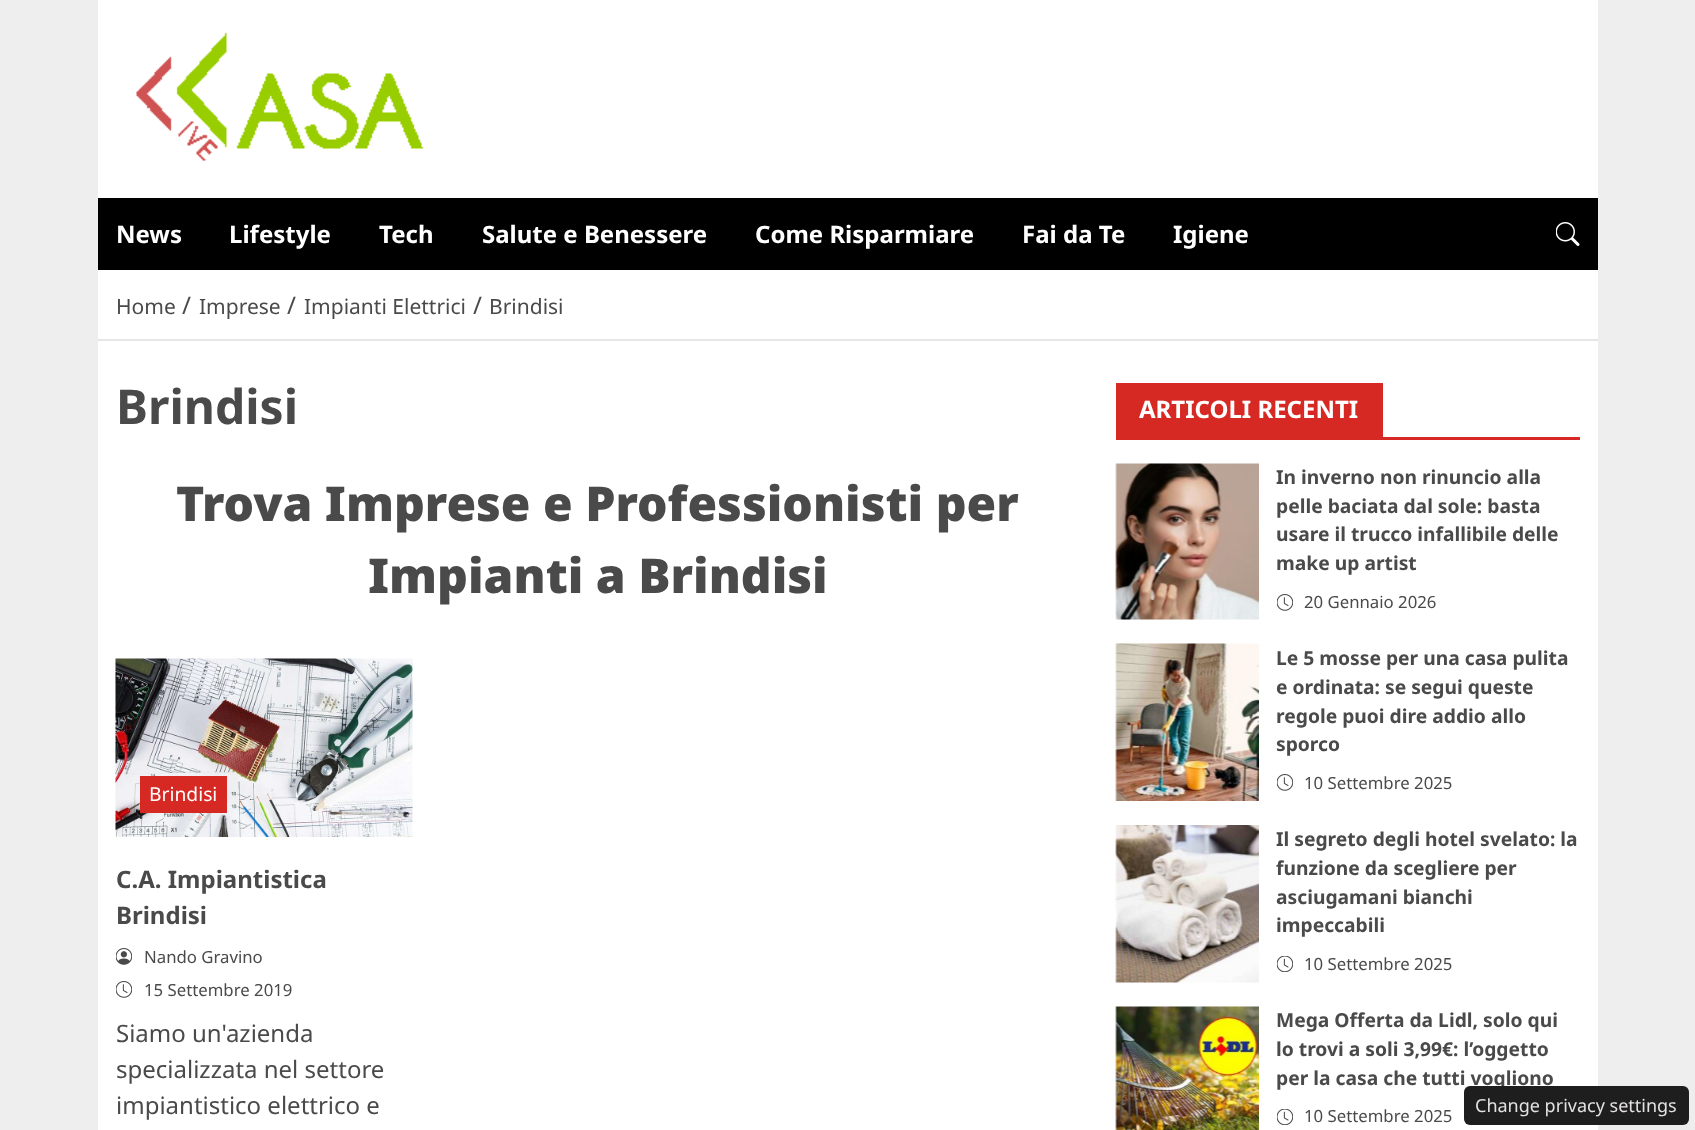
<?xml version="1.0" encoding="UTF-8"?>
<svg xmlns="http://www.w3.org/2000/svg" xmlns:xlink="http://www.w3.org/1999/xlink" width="1695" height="1130">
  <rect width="100%" height="100%" fill="#eeeeee" />
  <rect x="98" width="1500" height="198" fill="#ffffff" />
  <image x="136" y="32" width="288" height="129" xlink:href="image1.png" />
  <rect x="98" y="198" width="1500" height="72" fill="#000000" />
  <image x="1556" y="222" width="24" height="24" xlink:href="image2.png" />
  <rect x="98" y="270" width="1500" height="69" fill="#ffffff" />
  <rect x="98" y="339" width="1500" height="2" fill="#e6e6e6" />
  <rect x="98" y="341" width="1500" height="789" fill="#ffffff" />
  <image x="115" y="658" width="298" height="179" xlink:href="image3.png" />
  <rect x="140" y="776" width="87" height="37" fill="#d72924" />
  <image x="116" y="948" width="16" height="17" xlink:href="image4.png" />
  <image x="116" y="981" width="16" height="17" xlink:href="image5.png" />
  <rect x="1116" y="437" width="464" height="3" fill="#d72924" />
  <rect x="1116" y="383" width="267" height="54" fill="#d72924" />
  <image x="1115" y="463" width="144" height="157" xlink:href="image6.png" />
  <image x="1277" y="594" width="16" height="17" xlink:href="image5.png" />
  <image x="1115" y="643" width="144" height="158" xlink:href="image7.png" />
  <image x="1277" y="774" width="16" height="17" xlink:href="image5.png" />
  <image x="1115" y="825" width="144" height="158" xlink:href="image8.png" />
  <image x="1277" y="956" width="16" height="16" xlink:href="image9.png" />
  <image x="1115" y="1006" width="144" height="124" xlink:href="image10.png" />
  <image x="1277" y="1109" width="16" height="16" xlink:href="image9.png" />
  <text x="116" y="243" style="font-family: Noto Sans; font-size: 24px; font-weight: bold; fill: #ffffff">News</text>
  <text x="229" y="243" style="font-family: Noto Sans; font-size: 24px; font-weight: bold; fill: #ffffff">Lifestyle</text>
  <text x="379" y="243" style="font-family: Noto Sans; font-size: 24px; font-weight: bold; fill: #ffffff">Tech</text>
  <text x="482" y="243" style="font-family: Noto Sans; font-size: 24px; font-weight: bold; fill: #ffffff">Salute e Benessere</text>
  <text x="755" y="243" style="font-family: Noto Sans; font-size: 24px; font-weight: bold; fill: #ffffff">Come Risparmiare</text>
  <text x="1022" y="243" style="font-family: Noto Sans; font-size: 24px; font-weight: bold; fill: #ffffff">Fai da Te</text>
  <text x="1173" y="243" style="font-family: Noto Sans; font-size: 24px; font-weight: bold; fill: #ffffff">Igiene</text>
  <text x="116" y="314" style="font-family: Noto Sans; font-size: 21px; fill: #4a4a4a">Home</text>
  <text x="182" y="314" style="font-family: Noto Sans; font-size: 24px; fill: #4a4a4a">/</text>
  <text x="199" y="314" style="font-family: Noto Sans; font-size: 21px; fill: #4a4a4a">Imprese</text>
  <text x="287" y="314" style="font-family: Noto Sans; font-size: 24px; fill: #4a4a4a">/</text>
  <text x="304" y="314" style="font-family: Noto Sans; font-size: 21px; fill: #4a4a4a">Impianti Elettrici</text>
  <text x="473" y="314" style="font-family: Noto Sans; font-size: 24px; fill: #4a4a4a">/</text>
  <text x="489" y="314" style="font-family: Noto Sans; font-size: 21px; fill: #4a4a4a">Brindisi</text>
  <text x="116" y="424" style="font-family: Noto Sans; font-size: 48px; font-weight: bold; fill: #4a4a4a">Brindisi</text>
  <text x="176" y="521" style="font-family: Noto Sans; font-size: 48px; font-weight: 900; fill: #4a4a4a">Trova Imprese e Professionisti per</text>
  <text x="368" y="593" style="font-family: Noto Sans; font-size: 48px; font-weight: 900; fill: #4a4a4a">Impianti a Brindisi</text>
  <text x="149" y="801" style="font-family: Noto Sans; font-size: 19.25px; fill: #ffffff">Brindisi</text>
  <text x="116" y="888" style="font-family: Noto Sans; font-size: 24px; font-weight: bold; fill: #4a4a4a">C.A. Impiantistica</text>
  <text x="116" y="924" style="font-family: Noto Sans; font-size: 24px; font-weight: bold; fill: #4a4a4a">Brindisi</text>
  <text x="144" y="963" style="font-family: Noto Sans; font-size: 16.75px; fill: #4a4a4a">Nando Gravino</text>
  <text x="144" y="996" style="font-family: Noto Sans; font-size: 16.75px; fill: #4a4a4a">15 Settembre 2019</text>
  <text x="116" y="1042" style="font-family: Noto Sans; font-size: 24px; fill: #4a4a4a">Siamo un'azienda</text>
  <text x="116" y="1078" style="font-family: Noto Sans; font-size: 24px; fill: #4a4a4a">specializzata nel settore</text>
  <text x="116" y="1114" style="font-family: Noto Sans; font-size: 24px; fill: #4a4a4a">impiantistico elettrico e</text>
  <text x="1139" y="418" style="font-family: Noto Sans; font-size: 24px; font-weight: bold; fill: #ffffff">ARTICOLI RECENTI</text>
  <text x="1276" y="484" style="font-family: Noto Sans; font-size: 19.25px; font-weight: bold; fill: #4a4a4a">In inverno non rinuncio alla</text>
  <text x="1276" y="513" style="font-family: Noto Sans; font-size: 19.25px; font-weight: bold; fill: #4a4a4a">pelle baciata dal sole: basta</text>
  <text x="1276" y="541" style="font-family: Noto Sans; font-size: 19.25px; font-weight: bold; fill: #4a4a4a">usare il trucco infallibile delle</text>
  <text x="1276" y="570" style="font-family: Noto Sans; font-size: 19.25px; font-weight: bold; fill: #4a4a4a">make up artist</text>
  <text x="1304" y="608" style="font-family: Noto Sans; font-size: 16.75px; fill: #4a4a4a">20 Gennaio 2026</text>
  <text x="1276" y="665" style="font-family: Noto Sans; font-size: 19.25px; font-weight: bold; fill: #4a4a4a">Le 5 mosse per una casa pulita</text>
  <text x="1276" y="694" style="font-family: Noto Sans; font-size: 19.25px; font-weight: bold; fill: #4a4a4a">e ordinata: se segui queste</text>
  <text x="1276" y="723" style="font-family: Noto Sans; font-size: 19.25px; font-weight: bold; fill: #4a4a4a">regole puoi dire addio allo</text>
  <text x="1276" y="751" style="font-family: Noto Sans; font-size: 19.25px; font-weight: bold; fill: #4a4a4a">sporco</text>
  <text x="1304" y="789" style="font-family: Noto Sans; font-size: 16.75px; fill: #4a4a4a">10 Settembre 2025</text>
  <text x="1276" y="846" style="font-family: Noto Sans; font-size: 19.25px; font-weight: bold; fill: #4a4a4a">Il segreto degli hotel svelato: la</text>
  <text x="1276" y="875" style="font-family: Noto Sans; font-size: 19.25px; font-weight: bold; fill: #4a4a4a">funzione da scegliere per</text>
  <text x="1276" y="904" style="font-family: Noto Sans; font-size: 19.25px; font-weight: bold; fill: #4a4a4a">asciugamani bianchi</text>
  <text x="1276" y="932" style="font-family: Noto Sans; font-size: 19.25px; font-weight: bold; fill: #4a4a4a">impeccabili</text>
  <text x="1304" y="970" style="font-family: Noto Sans; font-size: 16.75px; fill: #4a4a4a">10 Settembre 2025</text>
  <text x="1276" y="1027" style="font-family: Noto Sans; font-size: 19.25px; font-weight: bold; fill: #4a4a4a">Mega Offerta da Lidl, solo qui</text>
  <text x="1276" y="1056" style="font-family: Noto Sans; font-size: 19.25px; font-weight: bold; fill: #4a4a4a">lo trovi a soli 3,99€: l’oggetto</text>
  <text x="1276" y="1085" style="font-family: Noto Sans; font-size: 19.25px; font-weight: bold; fill: #4a4a4a">per la casa che tutti vogliono</text>
  <text x="1304" y="1122" style="font-family: Noto Sans; font-size: 16.75px; fill: #4a4a4a">10 Settembre 2025</text>
  <rect x="1464" y="1086" width="225" height="39" rx="6" fill="#1e1e1e" />
  <text x="1475" y="1112" style="font-family: Noto Sans; font-size: 18px; fill: #e3e1e1">Change privacy settings</text>
</svg>
